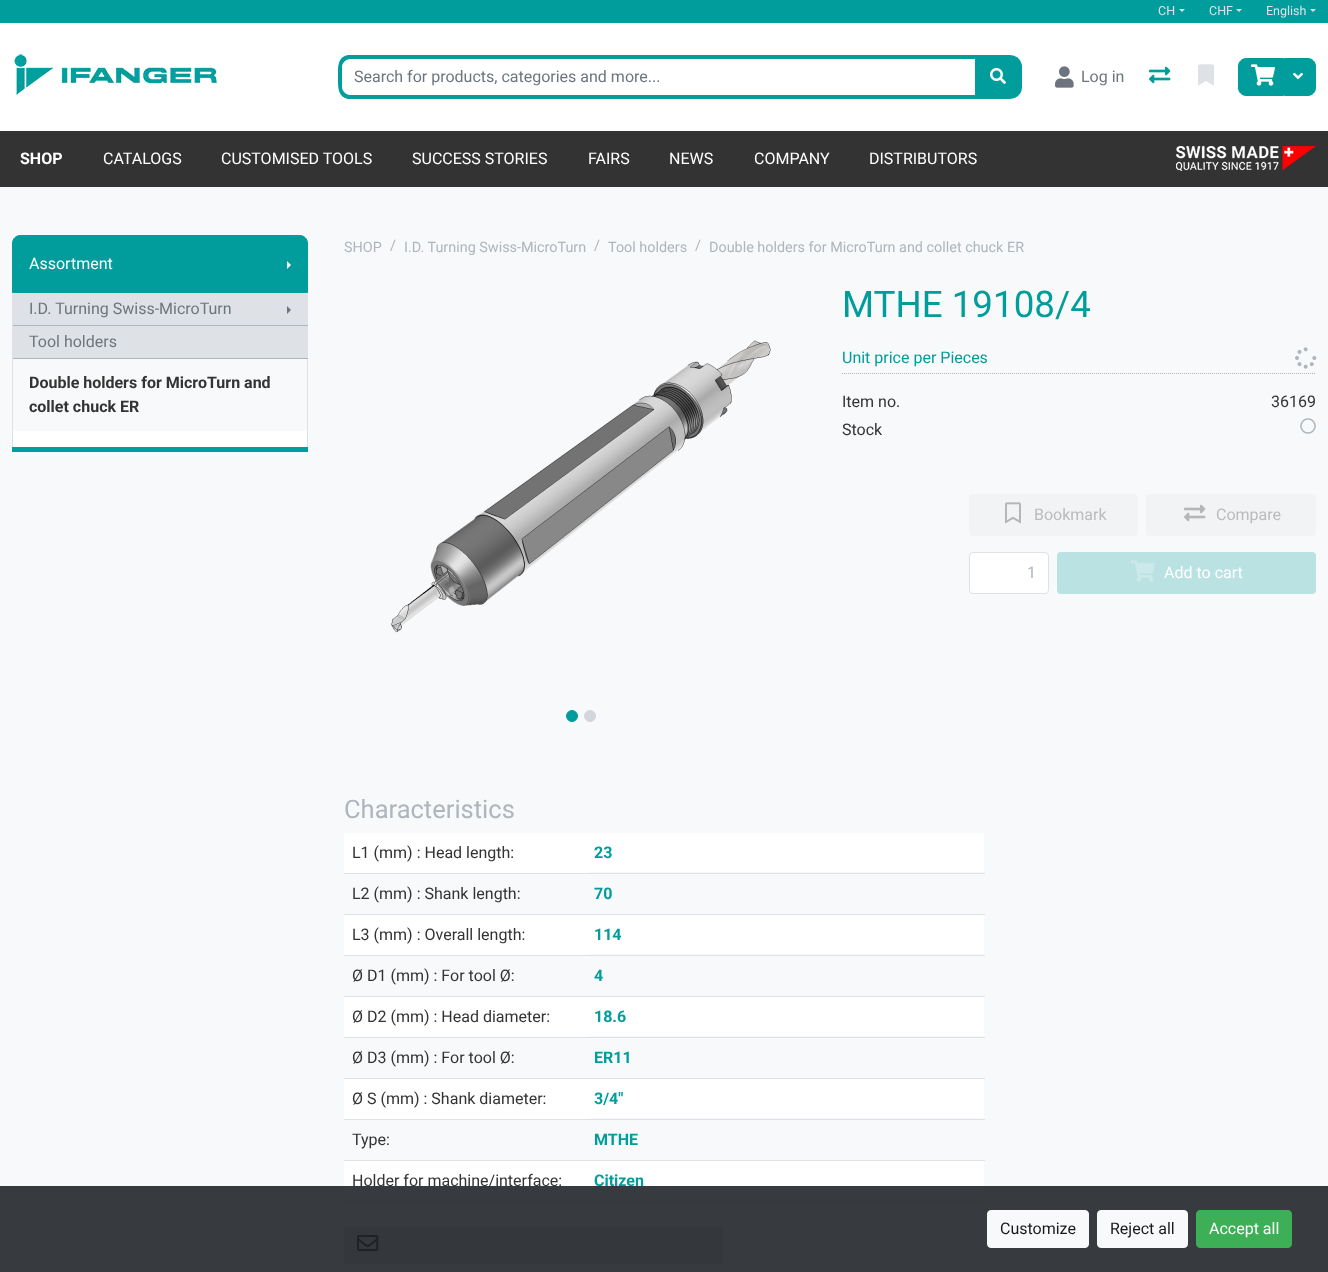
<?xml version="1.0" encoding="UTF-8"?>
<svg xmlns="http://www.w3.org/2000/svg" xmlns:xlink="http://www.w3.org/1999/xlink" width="1328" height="1272">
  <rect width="100%" height="100%" fill="#f8f9fa" />
  <rect width="1328" height="23" fill="#019d9c" />
  <path d="M 1179 9 h 6 l -3 3 z" fill="#dee2e6" />
  <path d="M 1236 9 h 6 l -3 3 z" fill="#dee2e6" />
  <path d="M 1310 9 h 6 l -3 3 z" fill="#dee2e6" />
  <rect y="23" width="1328" height="108" fill="#ffffff" />
  <image x="14" y="54" width="204" height="41" xlink:href="image1.png" />
  <path d="M 976 57 h 34 c 5.5 0 10 4.5 10 10 v 20 c 0 5.5 -4.5 10 -10 10 h -34 z" fill="#019d9c" stroke="#019d9c" stroke-width="4" />
  <path d="M 350 59 h 625 v 36 h -625 c -4.5 0 -8 -3.5 -8 -8 v -20 c 0 -4.5 3.5 -8 8 -8 z" fill="#ffffff" />
  <path d="M 350 55 h 625 v 44 h -627 c -11 -2 -10 -14 -10 -22 c 0 -9 -1 -22 12 -22 z m 0 4 h 625 v 36 h -625 c -4 0 -8 -4 -8 -8 v -20 c 0 -4 4 -8 8 -8 z" fill="#019d9c" fill-rule="evenodd" />
  <image x="990" y="68" width="16" height="16" xlink:href="image2.png" />
  <image x="1055" y="66" width="19" height="22" xlink:href="image3.png" />
  <image x="1149" y="66" width="22" height="18" xlink:href="image4.png" />
  <image x="1198" y="64" width="16" height="22" xlink:href="image5.png" />
  <path d="M 1246 58.5 h 37.5 v 37 h -37.5 c -4 0 -7.5 -3.5 -7.5 -7.5 v -22 c 0 -4 3.5 -7.5 7.5 -7.5 z" fill="#019d9c" stroke="#019d9c" />
  <image x="1251" y="64" width="24" height="22" xlink:href="image6.png" />
  <path d="M 1284.5 58.5 h 23.5 c 4 0 7.5 3.5 7.5 7.5 v 22 c 0 4 -3.5 7.5 -7.5 7.5 h -23.5 z" fill="#019d9c" stroke="#019d9c" />
  <image x="1293" y="72" width="10" height="8" xlink:href="image7.png" />
  <rect y="131" width="1328" height="56" fill="#333333" />
  <image x="1176" y="146" width="140" height="25" xlink:href="image8.png" />
  <rect x="12" y="235" width="296" height="212" fill="#ffffff" />
  <rect x="12" y="447" width="296" height="5" fill="#019d9c" />
  <path d="M 20 235.5 h 280 c 4 0 7.5 3.5 7.5 7.5 v 49.5 h -295 v -49.5 c 0 -4 3.5 -7.5 7.5 -7.5 z" fill="#019d9c" stroke="#019d9c" />
  <path d="M 287 269 v -8 l 4 4 z" fill="#ffffff" />
  <rect x="13" y="293" width="295" height="32" fill="#dee2e6" />
  <rect x="12" y="325" width="296" height="1" fill="#adb5bd" />
  <rect x="12" y="293" width="1" height="33" fill="#dee2e6" />
  <path d="M 287 314 v -8 l 4 4 z" fill="#6c757d" />
  <rect x="13" y="326" width="295" height="32" fill="#dee2e6" />
  <rect x="12" y="358" width="296" height="1" fill="#adb5bd" />
  <rect x="12" y="326" width="1" height="105" fill="#dee2e6" />
  <rect x="13" y="359" width="294" height="72" fill="#f8f9fa" />
  <rect x="307" y="359" width="1" height="88" fill="#dee2e6" />
  <rect x="12" y="431" width="1" height="16" fill="#dee2e6" />
  <image x="391" y="340" width="380" height="293" xlink:href="image9.png" />
  <circle cx="572" cy="716" r="5.5" fill="#019d9c" stroke="#019d9c" />
  <circle cx="590" cy="716" r="5.5" fill="#d3d7dc" stroke="#d3d7dc" />
  <path d="M 842 373.5 h 474" fill="none" stroke="#adb5bd" stroke-dasharray="1 1" />
  <image x="1295" y="347" width="22" height="22" xlink:href="image10.png" />
  <image x="1300" y="418" width="16" height="16" xlink:href="image11.png" />
  <rect x="969" y="494" width="169" height="42" rx="4" fill="#f2f3f5" />
  <image x="1005" y="502" width="16" height="22" xlink:href="image12.png" />
  <rect x="1146" y="494" width="170" height="42" rx="4" fill="#f2f3f5" />
  <image x="1184" y="504" width="22" height="18" xlink:href="image13.png" />
  <rect x="969.5" y="552.5" width="79" height="41" rx="3.5" fill="#ffffff" stroke="#dee2e6" />
  <rect x="1057" y="552" width="259" height="42" rx="4" fill="#bae2e3" />
  <image x="1131" y="560" width="24" height="22" xlink:href="image14.png" />
  <rect x="344" y="833" width="242" height="40" fill="#ffffff" />
  <rect x="586" y="833" width="398" height="39" fill="#ffffff" />
  <rect x="344" y="873" width="641" height="1" fill="#dee2e6" />
  <rect x="344" y="914" width="641" height="1" fill="#dee2e6" />
  <rect x="344" y="915" width="242" height="40" fill="#ffffff" />
  <rect x="586" y="915" width="398" height="39" fill="#ffffff" />
  <rect x="344" y="955" width="641" height="1" fill="#dee2e6" />
  <rect x="344" y="996" width="641" height="1" fill="#dee2e6" />
  <rect x="344" y="997" width="242" height="40" fill="#ffffff" />
  <rect x="586" y="997" width="398" height="39" fill="#ffffff" />
  <rect x="344" y="1037" width="641" height="1" fill="#dee2e6" />
  <rect x="344" y="1078" width="641" height="1" fill="#dee2e6" />
  <rect x="344" y="1079" width="242" height="40" fill="#ffffff" />
  <rect x="586" y="1079" width="398" height="39" fill="#ffffff" />
  <rect x="344" y="1119" width="641" height="1" fill="#dee2e6" />
  <rect x="344" y="1160" width="641" height="1" fill="#dee2e6" />
  <rect x="344" y="1161" width="242" height="40" fill="#ffffff" />
  <rect x="586" y="1161" width="398" height="39" fill="#ffffff" />
  <rect x="344" y="1201" width="641" height="1" fill="#dee2e6" />
  <rect x="344.5" y="1226.5" width="378" height="37" rx="3.5" fill="#dee2e6" stroke="#dee2e6" />
  <image x="357" y="1235" width="22" height="16" xlink:href="image15.png" />
  <text x="1158" y="15" style="font-family: Roboto; font-size: 12.5px; fill: #dee2e6">CH</text>
  <text x="1209" y="15" style="font-family: Roboto; font-size: 12.5px; fill: #dee2e6">CHF</text>
  <text x="1266" y="15" style="font-family: Roboto; font-size: 12.5px; fill: #dee2e6">English</text>
  <text x="354" y="82" style="font-family: Roboto; font-size: 16px; fill: #6c757d">Search for products, categories and more...</text>
  <text x="1081" y="82" style="font-family: Roboto; font-size: 16px; fill: #6c757d">Log in</text>
  <text x="20" y="164" style="font-family: Roboto; font-size: 16px; font-weight: bold; fill: #ffffff">SHOP</text>
  <text x="103" y="164" style="font-family: Roboto; font-size: 16px; fill: #ffffff">CATALOGS</text>
  <text x="221" y="164" style="font-family: Roboto; font-size: 16px; fill: #ffffff">CUSTOMISED TOOLS</text>
  <text x="412" y="164" style="font-family: Roboto; font-size: 16px; fill: #ffffff">SUCCESS STORIES</text>
  <text x="588" y="164" style="font-family: Roboto; font-size: 16px; fill: #ffffff">FAIRS</text>
  <text x="669" y="164" style="font-family: Roboto; font-size: 16px; fill: #ffffff">NEWS</text>
  <text x="754" y="164" style="font-family: Roboto; font-size: 16px; fill: #ffffff">COMPANY</text>
  <text x="869" y="164" style="font-family: Roboto; font-size: 16px; fill: #ffffff">DISTRIBUTORS</text>
  <text x="29" y="269" style="font-family: Roboto; font-size: 16px; fill: #ffffff">Assortment</text>
  <text x="29" y="314" style="font-family: Roboto; font-size: 16px; fill: #6c757d">I.D. Turning Swiss-MicroTurn</text>
  <text x="29" y="347" style="font-family: Roboto; font-size: 16px; fill: #6c757d">Tool holders</text>
  <text x="29" y="388" style="font-family: Roboto; font-size: 16px; font-weight: bold; fill: #333333">Double holders for MicroTurn and</text>
  <text x="29" y="412" style="font-family: Roboto; font-size: 16px; font-weight: bold; fill: #333333">collet chuck ER</text>
  <text x="344" y="252" style="font-family: Roboto; font-size: 14.4px; fill: #adb5bd">SHOP</text>
  <text x="390" y="250" style="font-family: Roboto; font-size: 14.4px; fill: #adb5bd">/</text>
  <text x="404" y="252" style="font-family: Roboto; font-size: 14.4px; fill: #adb5bd">I.D. Turning Swiss-MicroTurn</text>
  <text x="594" y="250" style="font-family: Roboto; font-size: 14.4px; fill: #adb5bd">/</text>
  <text x="608" y="252" style="font-family: Roboto; font-size: 14.4px; fill: #adb5bd">Tool holders</text>
  <text x="695" y="250" style="font-family: Roboto; font-size: 14.4px; fill: #adb5bd">/</text>
  <text x="709" y="252" style="font-family: Roboto; font-size: 14.4px; fill: #adb5bd">Double holders for MicroTurn and collet chuck ER</text>
  <text x="842" y="317" style="font-family: Roboto; font-size: 36.75px; fill: #019d9c">MTHE 19108/4</text>
  <text x="842" y="363" style="font-family: Roboto; font-size: 16px; fill: #019d9c">Unit price per Pieces</text>
  <text x="842" y="407" style="font-family: Roboto; font-size: 16px; fill: #333333">Item no.</text>
  <text x="1271" y="407" style="font-family: Roboto; font-size: 16px; fill: #333333">36169</text>
  <text x="842" y="435" style="font-family: Roboto; font-size: 16px; fill: #333333">Stock</text>
  <text x="1034" y="520" style="font-family: Roboto; font-size: 16px; fill: #babbbc">Bookmark</text>
  <text x="1216" y="520" style="font-family: Roboto; font-size: 16px; fill: #babbbc">Compare</text>
  <text x="1027" y="578" style="font-family: Roboto; font-size: 16px; fill: #adb5bd">1</text>
  <text x="1164" y="578" style="font-family: Roboto; font-size: 16px; fill: #ffffff">Add to cart</text>
  <text x="344" y="818" style="font-family: Roboto; font-size: 25.5px; fill: #adb5bd">Characteristics</text>
  <text x="352" y="858" style="font-family: Roboto; font-size: 16px; fill: #333333">L1 (mm) : Head length:</text>
  <text x="594" y="858" style="font-family: Roboto; font-size: 16px; font-weight: bold; fill: #019d9c">23</text>
  <text x="352" y="899" style="font-family: Roboto; font-size: 16px; fill: #333333">L2 (mm) : Shank length:</text>
  <text x="594" y="899" style="font-family: Roboto; font-size: 16px; font-weight: bold; fill: #019d9c">70</text>
  <text x="352" y="940" style="font-family: Roboto; font-size: 16px; fill: #333333">L3 (mm) : Overall length:</text>
  <text x="594" y="940" style="font-family: Roboto; font-size: 16px; font-weight: bold; fill: #019d9c">114</text>
  <text x="352" y="981" style="font-family: Roboto; font-size: 16px; fill: #333333">Ø D1 (mm) : For tool Ø:</text>
  <text x="594" y="981" style="font-family: Roboto; font-size: 16px; font-weight: bold; fill: #019d9c">4</text>
  <text x="352" y="1022" style="font-family: Roboto; font-size: 16px; fill: #333333">Ø D2 (mm) : Head diameter:</text>
  <text x="594" y="1022" style="font-family: Roboto; font-size: 16px; font-weight: bold; fill: #019d9c">18.6</text>
  <text x="352" y="1063" style="font-family: Roboto; font-size: 16px; fill: #333333">Ø D3 (mm) : For tool Ø:</text>
  <text x="594" y="1063" style="font-family: Roboto; font-size: 16px; font-weight: bold; fill: #019d9c">ER11</text>
  <text x="352" y="1104" style="font-family: Roboto; font-size: 16px; fill: #333333">Ø S (mm) : Shank diameter:</text>
  <text x="594" y="1104" style="font-family: Roboto; font-size: 16px; font-weight: bold; fill: #019d9c">3/4"</text>
  <text x="352" y="1145" style="font-family: Roboto; font-size: 16px; fill: #333333">Type:</text>
  <text x="594" y="1145" style="font-family: Roboto; font-size: 16px; font-weight: bold; fill: #019d9c">MTHE</text>
  <text x="352" y="1186" style="font-family: Roboto; font-size: 16px; fill: #333333">Holder for machine/interface:</text>
  <text x="594" y="1186" style="font-family: Roboto; font-size: 16px; font-weight: bold; fill: #019d9c">Citizen</text>
  <rect y="1186" width="1328" height="86" fill="#212529" fill-opacity="0.9" />
  <rect x="987.5" y="1210.5" width="101" height="37" rx="3.5" fill="#f8f9fa" stroke="#f8f9fa" />
  <text x="1000" y="1234" style="font-family: Roboto; font-size: 16px; fill: #191919">Customize</text>
  <rect x="1097.5" y="1210.5" width="90" height="37" rx="3.5" fill="#f8f9fa" stroke="#f8f9fa" />
  <text x="1110" y="1234" style="font-family: Roboto; font-size: 16px; fill: #191919">Reject all</text>
  <rect x="1196.5" y="1210.5" width="95" height="37" rx="3.5" fill="#3daf57" stroke="#3daf57" />
  <text x="1209" y="1234" style="font-family: Roboto; font-size: 16px; fill: #ffffff">Accept all</text>
</svg>
